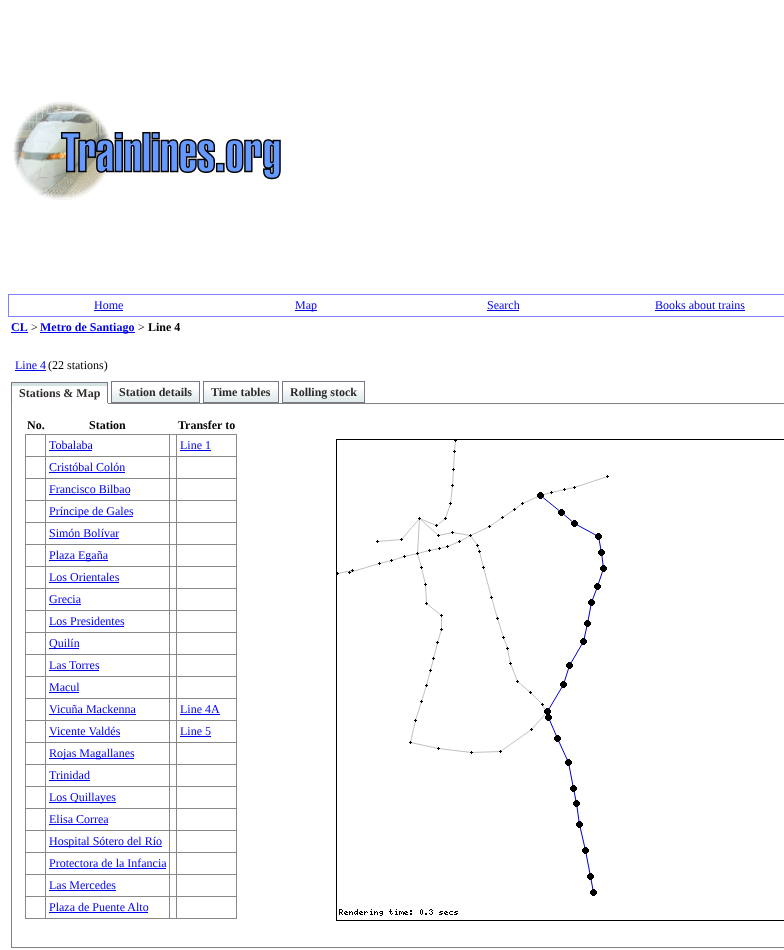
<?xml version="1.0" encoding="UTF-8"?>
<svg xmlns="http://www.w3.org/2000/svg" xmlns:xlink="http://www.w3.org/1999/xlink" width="784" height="950">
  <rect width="100%" height="100%" fill="#ffffff" />
  <image x="13" y="102" width="268" height="98" xlink:href="image1.png" />
  <rect x="8.5" y="294.5" width="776" height="22" fill="none" stroke="#8080ff" />
  <rect x="94" y="310" width="29" height="1" fill="#0000ee" />
  <rect x="295" y="310" width="22" height="1" fill="#0000ee" />
  <rect x="487" y="310" width="32" height="1" fill="#0000ee" />
  <rect x="655" y="310" width="90" height="1" fill="#0000ee" />
  <rect x="11" y="332" width="17" height="1" fill="#0000ee" />
  <rect x="40" y="332" width="95" height="1" fill="#0000ee" />
  <rect x="15" y="370" width="31" height="1" fill="#0000ee" />
  <rect x="11" y="383" width="97" height="3" fill="#d3e3e2" />
  <rect x="11" y="382" width="97" height="1" fill="#777788" />
  <rect x="11.5" y="403.5" width="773" height="544" fill="none" stroke="#808080" />
  <rect x="107" y="382" width="1" height="22" fill="#777788" />
  <rect x="11" y="403" width="97" height="1" fill="#ffffff" />
  <rect x="11" y="382" width="1" height="22" fill="#777788" />
  <image x="112" y="389" width="87" height="13" xlink:href="image2.png" />
  <rect x="111.5" y="381.5" width="88" height="21" fill="none" stroke="#777788" />
  <image x="204" y="389" width="74" height="13" xlink:href="image3.png" />
  <rect x="203.5" y="381.5" width="75" height="21" fill="none" stroke="#777788" />
  <image x="283" y="389" width="81" height="13" xlink:href="image4.png" />
  <rect x="282.5" y="381.5" width="82" height="21" fill="none" stroke="#777788" />
  <rect x="176" y="434" width="61" height="1" fill="#888888" />
  <rect x="176" y="456" width="61" height="1" fill="#888888" />
  <rect x="176" y="478" width="61" height="1" fill="#888888" />
  <rect x="176" y="500" width="61" height="1" fill="#888888" />
  <rect x="176" y="522" width="61" height="1" fill="#888888" />
  <rect x="176" y="544" width="61" height="1" fill="#888888" />
  <rect x="176" y="566" width="61" height="1" fill="#888888" />
  <rect x="176" y="588" width="61" height="1" fill="#888888" />
  <rect x="176" y="610" width="61" height="1" fill="#888888" />
  <rect x="176" y="632" width="61" height="1" fill="#888888" />
  <rect x="176" y="654" width="61" height="1" fill="#888888" />
  <rect x="176" y="676" width="61" height="1" fill="#888888" />
  <rect x="176" y="698" width="61" height="1" fill="#888888" />
  <rect x="176" y="720" width="61" height="1" fill="#888888" />
  <rect x="176" y="742" width="61" height="1" fill="#888888" />
  <rect x="176" y="764" width="61" height="1" fill="#888888" />
  <rect x="176" y="786" width="61" height="1" fill="#888888" />
  <rect x="176" y="808" width="61" height="1" fill="#888888" />
  <rect x="176" y="830" width="61" height="1" fill="#888888" />
  <rect x="176" y="852" width="61" height="1" fill="#888888" />
  <rect x="176" y="874" width="61" height="1" fill="#888888" />
  <rect x="176" y="896" width="61" height="1" fill="#888888" />
  <rect x="236" y="896" width="1" height="23" fill="#888888" />
  <rect x="176" y="918" width="61" height="1" fill="#888888" />
  <rect x="176" y="896" width="1" height="23" fill="#888888" />
  <rect x="169" y="896" width="8" height="1" fill="#888888" />
  <rect x="176" y="874" width="1" height="23" fill="#888888" />
  <rect x="169" y="874" width="8" height="1" fill="#888888" />
  <rect x="176" y="852" width="1" height="23" fill="#888888" />
  <rect x="169" y="852" width="8" height="1" fill="#888888" />
  <rect x="176" y="830" width="1" height="23" fill="#888888" />
  <rect x="169" y="830" width="8" height="1" fill="#888888" />
  <rect x="176" y="808" width="1" height="23" fill="#888888" />
  <rect x="169" y="808" width="8" height="1" fill="#888888" />
  <rect x="176" y="786" width="1" height="23" fill="#888888" />
  <rect x="169" y="786" width="8" height="1" fill="#888888" />
  <rect x="176" y="764" width="1" height="23" fill="#888888" />
  <rect x="169" y="764" width="8" height="1" fill="#888888" />
  <rect x="176" y="742" width="1" height="23" fill="#888888" />
  <rect x="169" y="742" width="8" height="1" fill="#888888" />
  <rect x="176" y="720" width="1" height="23" fill="#888888" />
  <rect x="169" y="720" width="8" height="1" fill="#888888" />
  <rect x="176" y="698" width="1" height="23" fill="#888888" />
  <rect x="169" y="698" width="8" height="1" fill="#888888" />
  <rect x="176" y="676" width="1" height="23" fill="#888888" />
  <rect x="169" y="676" width="8" height="1" fill="#888888" />
  <rect x="176" y="654" width="1" height="23" fill="#888888" />
  <rect x="169" y="654" width="8" height="1" fill="#888888" />
  <rect x="176" y="632" width="1" height="23" fill="#888888" />
  <rect x="169" y="632" width="8" height="1" fill="#888888" />
  <rect x="176" y="610" width="1" height="23" fill="#888888" />
  <rect x="169" y="610" width="8" height="1" fill="#888888" />
  <rect x="176" y="588" width="1" height="23" fill="#888888" />
  <rect x="169" y="588" width="8" height="1" fill="#888888" />
  <rect x="176" y="566" width="1" height="23" fill="#888888" />
  <rect x="169" y="566" width="8" height="1" fill="#888888" />
  <rect x="176" y="544" width="1" height="23" fill="#888888" />
  <rect x="169" y="544" width="8" height="1" fill="#888888" />
  <rect x="176" y="522" width="1" height="23" fill="#888888" />
  <rect x="169" y="522" width="8" height="1" fill="#888888" />
  <rect x="176" y="500" width="1" height="23" fill="#888888" />
  <rect x="169" y="500" width="8" height="1" fill="#888888" />
  <rect x="176" y="478" width="1" height="23" fill="#888888" />
  <rect x="169" y="478" width="8" height="1" fill="#888888" />
  <rect x="176" y="456" width="1" height="23" fill="#888888" />
  <rect x="169" y="456" width="8" height="1" fill="#888888" />
  <rect x="176" y="434" width="1" height="23" fill="#888888" />
  <rect x="169" y="434" width="8" height="1" fill="#888888" />
  <rect x="169" y="918" width="8" height="1" fill="#888888" />
  <rect x="169" y="896" width="1" height="23" fill="#888888" />
  <rect x="45" y="896" width="125" height="1" fill="#888888" />
  <rect x="169" y="874" width="1" height="23" fill="#888888" />
  <rect x="45" y="874" width="125" height="1" fill="#888888" />
  <rect x="169" y="852" width="1" height="23" fill="#888888" />
  <rect x="45" y="852" width="125" height="1" fill="#888888" />
  <rect x="169" y="830" width="1" height="23" fill="#888888" />
  <rect x="45" y="830" width="125" height="1" fill="#888888" />
  <rect x="169" y="808" width="1" height="23" fill="#888888" />
  <rect x="45" y="808" width="125" height="1" fill="#888888" />
  <rect x="169" y="786" width="1" height="23" fill="#888888" />
  <rect x="45" y="786" width="125" height="1" fill="#888888" />
  <rect x="169" y="764" width="1" height="23" fill="#888888" />
  <rect x="45" y="764" width="125" height="1" fill="#888888" />
  <rect x="169" y="742" width="1" height="23" fill="#888888" />
  <rect x="45" y="742" width="125" height="1" fill="#888888" />
  <rect x="169" y="720" width="1" height="23" fill="#888888" />
  <rect x="45" y="720" width="125" height="1" fill="#888888" />
  <rect x="169" y="698" width="1" height="23" fill="#888888" />
  <rect x="45" y="698" width="125" height="1" fill="#888888" />
  <rect x="169" y="676" width="1" height="23" fill="#888888" />
  <rect x="45" y="676" width="125" height="1" fill="#888888" />
  <rect x="169" y="654" width="1" height="23" fill="#888888" />
  <rect x="45" y="654" width="125" height="1" fill="#888888" />
  <rect x="169" y="632" width="1" height="23" fill="#888888" />
  <rect x="45" y="632" width="125" height="1" fill="#888888" />
  <rect x="169" y="610" width="1" height="23" fill="#888888" />
  <rect x="45" y="610" width="125" height="1" fill="#888888" />
  <rect x="169" y="588" width="1" height="23" fill="#888888" />
  <rect x="45" y="588" width="125" height="1" fill="#888888" />
  <rect x="169" y="566" width="1" height="23" fill="#888888" />
  <rect x="45" y="566" width="125" height="1" fill="#888888" />
  <rect x="169" y="544" width="1" height="23" fill="#888888" />
  <rect x="45" y="544" width="125" height="1" fill="#888888" />
  <rect x="169" y="522" width="1" height="23" fill="#888888" />
  <rect x="45" y="522" width="125" height="1" fill="#888888" />
  <rect x="169" y="500" width="1" height="23" fill="#888888" />
  <rect x="45" y="500" width="125" height="1" fill="#888888" />
  <rect x="169" y="478" width="1" height="23" fill="#888888" />
  <rect x="45" y="478" width="125" height="1" fill="#888888" />
  <rect x="169" y="456" width="1" height="23" fill="#888888" />
  <rect x="45" y="456" width="125" height="1" fill="#888888" />
  <rect x="169" y="434" width="1" height="23" fill="#888888" />
  <rect x="45" y="434" width="125" height="1" fill="#888888" />
  <rect x="45" y="918" width="125" height="1" fill="#888888" />
  <rect x="45" y="896" width="1" height="23" fill="#888888" />
  <rect x="25" y="896" width="21" height="1" fill="#888888" />
  <rect x="45" y="874" width="1" height="23" fill="#888888" />
  <rect x="25" y="874" width="21" height="1" fill="#888888" />
  <rect x="45" y="852" width="1" height="23" fill="#888888" />
  <rect x="25" y="852" width="21" height="1" fill="#888888" />
  <rect x="45" y="830" width="1" height="23" fill="#888888" />
  <rect x="25" y="830" width="21" height="1" fill="#888888" />
  <rect x="45" y="808" width="1" height="23" fill="#888888" />
  <rect x="25" y="808" width="21" height="1" fill="#888888" />
  <rect x="45" y="786" width="1" height="23" fill="#888888" />
  <rect x="25" y="786" width="21" height="1" fill="#888888" />
  <rect x="45" y="764" width="1" height="23" fill="#888888" />
  <rect x="25" y="764" width="21" height="1" fill="#888888" />
  <rect x="45" y="742" width="1" height="23" fill="#888888" />
  <rect x="25" y="742" width="21" height="1" fill="#888888" />
  <rect x="45" y="720" width="1" height="23" fill="#888888" />
  <rect x="25" y="720" width="21" height="1" fill="#888888" />
  <rect x="45" y="698" width="1" height="23" fill="#888888" />
  <rect x="25" y="698" width="21" height="1" fill="#888888" />
  <rect x="45" y="676" width="1" height="23" fill="#888888" />
  <rect x="25" y="676" width="21" height="1" fill="#888888" />
  <rect x="45" y="654" width="1" height="23" fill="#888888" />
  <rect x="25" y="654" width="21" height="1" fill="#888888" />
  <rect x="45" y="632" width="1" height="23" fill="#888888" />
  <rect x="25" y="632" width="21" height="1" fill="#888888" />
  <rect x="45" y="610" width="1" height="23" fill="#888888" />
  <rect x="25" y="610" width="21" height="1" fill="#888888" />
  <rect x="45" y="588" width="1" height="23" fill="#888888" />
  <rect x="25" y="588" width="21" height="1" fill="#888888" />
  <rect x="45" y="566" width="1" height="23" fill="#888888" />
  <rect x="25" y="566" width="21" height="1" fill="#888888" />
  <rect x="45" y="544" width="1" height="23" fill="#888888" />
  <rect x="25" y="544" width="21" height="1" fill="#888888" />
  <rect x="45" y="522" width="1" height="23" fill="#888888" />
  <rect x="25" y="522" width="21" height="1" fill="#888888" />
  <rect x="45" y="500" width="1" height="23" fill="#888888" />
  <rect x="25" y="500" width="21" height="1" fill="#888888" />
  <rect x="45" y="478" width="1" height="23" fill="#888888" />
  <rect x="25" y="478" width="21" height="1" fill="#888888" />
  <rect x="45" y="456" width="1" height="23" fill="#888888" />
  <rect x="25" y="456" width="21" height="1" fill="#888888" />
  <rect x="45" y="434" width="1" height="23" fill="#888888" />
  <rect x="25" y="434" width="21" height="1" fill="#888888" />
  <rect x="25" y="918" width="21" height="1" fill="#888888" />
  <rect x="25" y="896" width="1" height="23" fill="#888888" />
  <rect x="25" y="874" width="1" height="23" fill="#888888" />
  <rect x="25" y="852" width="1" height="23" fill="#888888" />
  <rect x="25" y="830" width="1" height="23" fill="#888888" />
  <rect x="25" y="808" width="1" height="23" fill="#888888" />
  <rect x="25" y="786" width="1" height="23" fill="#888888" />
  <rect x="25" y="764" width="1" height="23" fill="#888888" />
  <rect x="25" y="742" width="1" height="23" fill="#888888" />
  <rect x="25" y="720" width="1" height="23" fill="#888888" />
  <rect x="25" y="698" width="1" height="23" fill="#888888" />
  <rect x="25" y="676" width="1" height="23" fill="#888888" />
  <rect x="25" y="654" width="1" height="23" fill="#888888" />
  <rect x="25" y="632" width="1" height="23" fill="#888888" />
  <rect x="25" y="610" width="1" height="23" fill="#888888" />
  <rect x="25" y="588" width="1" height="23" fill="#888888" />
  <rect x="25" y="566" width="1" height="23" fill="#888888" />
  <rect x="25" y="544" width="1" height="23" fill="#888888" />
  <rect x="25" y="522" width="1" height="23" fill="#888888" />
  <rect x="25" y="500" width="1" height="23" fill="#888888" />
  <rect x="25" y="478" width="1" height="23" fill="#888888" />
  <rect x="25" y="456" width="1" height="23" fill="#888888" />
  <rect x="25" y="434" width="1" height="23" fill="#888888" />
  <rect x="49" y="450" width="43" height="1" fill="#0000ee" />
  <rect x="236" y="874" width="1" height="23" fill="#888888" />
  <rect x="236" y="852" width="1" height="23" fill="#888888" />
  <rect x="236" y="830" width="1" height="23" fill="#888888" />
  <rect x="236" y="808" width="1" height="23" fill="#888888" />
  <rect x="236" y="786" width="1" height="23" fill="#888888" />
  <rect x="236" y="764" width="1" height="23" fill="#888888" />
  <rect x="236" y="742" width="1" height="23" fill="#888888" />
  <rect x="236" y="720" width="1" height="23" fill="#888888" />
  <rect x="236" y="698" width="1" height="23" fill="#888888" />
  <rect x="236" y="676" width="1" height="23" fill="#888888" />
  <rect x="236" y="654" width="1" height="23" fill="#888888" />
  <rect x="236" y="632" width="1" height="23" fill="#888888" />
  <rect x="236" y="610" width="1" height="23" fill="#888888" />
  <rect x="236" y="588" width="1" height="23" fill="#888888" />
  <rect x="236" y="566" width="1" height="23" fill="#888888" />
  <rect x="236" y="544" width="1" height="23" fill="#888888" />
  <rect x="236" y="522" width="1" height="23" fill="#888888" />
  <rect x="236" y="500" width="1" height="23" fill="#888888" />
  <rect x="236" y="478" width="1" height="23" fill="#888888" />
  <rect x="236" y="456" width="1" height="23" fill="#888888" />
  <rect x="236" y="434" width="1" height="23" fill="#888888" />
  <rect x="180" y="450" width="31" height="1" fill="#0000ee" />
  <rect x="49" y="472" width="76" height="1" fill="#0000ee" />
  <rect x="49" y="494" width="81" height="1" fill="#0000ee" />
  <rect x="49" y="516" width="84" height="1" fill="#0000ee" />
  <rect x="49" y="538" width="70" height="1" fill="#0000ee" />
  <rect x="49" y="560" width="59" height="1" fill="#0000ee" />
  <rect x="49" y="582" width="70" height="1" fill="#0000ee" />
  <rect x="49" y="604" width="32" height="1" fill="#0000ee" />
  <rect x="49" y="626" width="75" height="1" fill="#0000ee" />
  <rect x="49" y="648" width="30" height="1" fill="#0000ee" />
  <rect x="49" y="670" width="50" height="1" fill="#0000ee" />
  <rect x="49" y="692" width="30" height="1" fill="#0000ee" />
  <rect x="49" y="714" width="87" height="1" fill="#0000ee" />
  <rect x="180" y="714" width="40" height="1" fill="#0000ee" />
  <rect x="49" y="736" width="71" height="1" fill="#0000ee" />
  <rect x="180" y="736" width="31" height="1" fill="#0000ee" />
  <rect x="49" y="758" width="85" height="1" fill="#0000ee" />
  <rect x="49" y="780" width="41" height="1" fill="#0000ee" />
  <rect x="49" y="802" width="67" height="1" fill="#0000ee" />
  <rect x="49" y="824" width="59" height="1" fill="#0000ee" />
  <rect x="49" y="846" width="113" height="1" fill="#0000ee" />
  <rect x="49" y="868" width="117" height="1" fill="#0000ee" />
  <rect x="49" y="890" width="67" height="1" fill="#0000ee" />
  <rect x="49" y="912" width="99" height="1" fill="#0000ee" />
  <rect x="336.5" y="439.5" width="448" height="481" fill="none" stroke="#000000" />
  <image x="337" y="440" width="272" height="476" xlink:href="image5.png" />
  <text x="94" y="309" style="font-family: Liberation Serif; font-size: 12px; fill: #0000ee">Home</text>
  <text x="295" y="309" style="font-family: Liberation Serif; font-size: 12px; fill: #0000ee">Map</text>
  <text x="487" y="309" style="font-family: Liberation Serif; font-size: 12px; fill: #0000ee">Search</text>
  <text x="655" y="309" style="font-family: Liberation Serif; font-size: 12px; fill: #0000ee">Books about trains</text>
  <text x="11" y="331" style="font-family: Liberation Serif; font-size: 12px; font-weight: bold; fill: #0000ee">CL</text>
  <text x="31" y="331" style="font-family: Liberation Serif; font-size: 12px; fill: #000000">&gt;</text>
  <text x="40" y="331" style="font-family: Liberation Serif; font-size: 12px; font-weight: bold; fill: #0000ee">Metro de Santiago</text>
  <text x="138" y="331" style="font-family: Liberation Serif; font-size: 12px; fill: #000000">&gt;</text>
  <text x="148" y="331" style="font-family: Liberation Serif; font-size: 12px; font-weight: bold; fill: #000000">Line 4</text>
  <text x="15" y="369" style="font-family: Liberation Serif; font-size: 12px; fill: #0000ee">Line 4</text>
  <text x="48" y="369" style="font-family: Liberation Serif; font-size: 12px; fill: #000000">(22 stations)</text>
  <text x="19" y="397" style="font-family: Liberation Serif; font-size: 12px; font-weight: bold; fill: #2d2b2b">Stations &amp; Map</text>
  <text x="119" y="396" style="font-family: Liberation Serif; font-size: 12px; font-weight: bold; fill: #2d2b2b">Station details</text>
  <text x="211" y="396" style="font-family: Liberation Serif; font-size: 12px; font-weight: bold; fill: #2d2b2b">Time tables</text>
  <text x="290" y="396" style="font-family: Liberation Serif; font-size: 12px; font-weight: bold; fill: #2d2b2b">Rolling stock</text>
  <text x="27" y="429" style="font-family: Liberation Serif; font-size: 12px; font-weight: bold; fill: #000000">No.</text>
  <text x="89" y="429" style="font-family: Liberation Serif; font-size: 12px; font-weight: bold; fill: #000000">Station</text>
  <text x="178" y="429" style="font-family: Liberation Serif; font-size: 12px; font-weight: bold; fill: #000000">Transfer to</text>
  <text x="49" y="449" style="font-family: Liberation Serif; font-size: 12px; fill: #0000ee">Tobalaba</text>
  <text x="180" y="449" style="font-family: Liberation Serif; font-size: 12px; fill: #0000ee">Line 1</text>
  <text x="49" y="471" style="font-family: Liberation Serif; font-size: 12px; fill: #0000ee">Cristóbal Colón</text>
  <text x="49" y="493" style="font-family: Liberation Serif; font-size: 12px; fill: #0000ee">Francisco Bilbao</text>
  <text x="49" y="515" style="font-family: Liberation Serif; font-size: 12px; fill: #0000ee">Príncipe de Gales</text>
  <text x="49" y="537" style="font-family: Liberation Serif; font-size: 12px; fill: #0000ee">Simón Bolívar</text>
  <text x="49" y="559" style="font-family: Liberation Serif; font-size: 12px; fill: #0000ee">Plaza Egaña</text>
  <text x="49" y="581" style="font-family: Liberation Serif; font-size: 12px; fill: #0000ee">Los Orientales</text>
  <text x="49" y="603" style="font-family: Liberation Serif; font-size: 12px; fill: #0000ee">Grecia</text>
  <text x="49" y="625" style="font-family: Liberation Serif; font-size: 12px; fill: #0000ee">Los Presidentes</text>
  <text x="49" y="647" style="font-family: Liberation Serif; font-size: 12px; fill: #0000ee">Quilín</text>
  <text x="49" y="669" style="font-family: Liberation Serif; font-size: 12px; fill: #0000ee">Las Torres</text>
  <text x="49" y="691" style="font-family: Liberation Serif; font-size: 12px; fill: #0000ee">Macul</text>
  <text x="49" y="713" style="font-family: Liberation Serif; font-size: 12px; fill: #0000ee">Vicuña Mackenna</text>
  <text x="180" y="713" style="font-family: Liberation Serif; font-size: 12px; fill: #0000ee">Line 4A</text>
  <text x="49" y="735" style="font-family: Liberation Serif; font-size: 12px; fill: #0000ee">Vicente Valdés</text>
  <text x="180" y="735" style="font-family: Liberation Serif; font-size: 12px; fill: #0000ee">Line 5</text>
  <text x="49" y="757" style="font-family: Liberation Serif; font-size: 12px; fill: #0000ee">Rojas Magallanes</text>
  <text x="49" y="779" style="font-family: Liberation Serif; font-size: 12px; fill: #0000ee">Trinidad</text>
  <text x="49" y="801" style="font-family: Liberation Serif; font-size: 12px; fill: #0000ee">Los Quillayes</text>
  <text x="49" y="823" style="font-family: Liberation Serif; font-size: 12px; fill: #0000ee">Elisa Correa</text>
  <text x="49" y="845" style="font-family: Liberation Serif; font-size: 12px; fill: #0000ee">Hospital Sótero del Río</text>
  <text x="49" y="867" style="font-family: Liberation Serif; font-size: 12px; fill: #0000ee">Protectora de la Infancia</text>
  <text x="49" y="889" style="font-family: Liberation Serif; font-size: 12px; fill: #0000ee">Las Mercedes</text>
  <text x="49" y="911" style="font-family: Liberation Serif; font-size: 12px; fill: #0000ee">Plaza de Puente Alto</text>
</svg>
